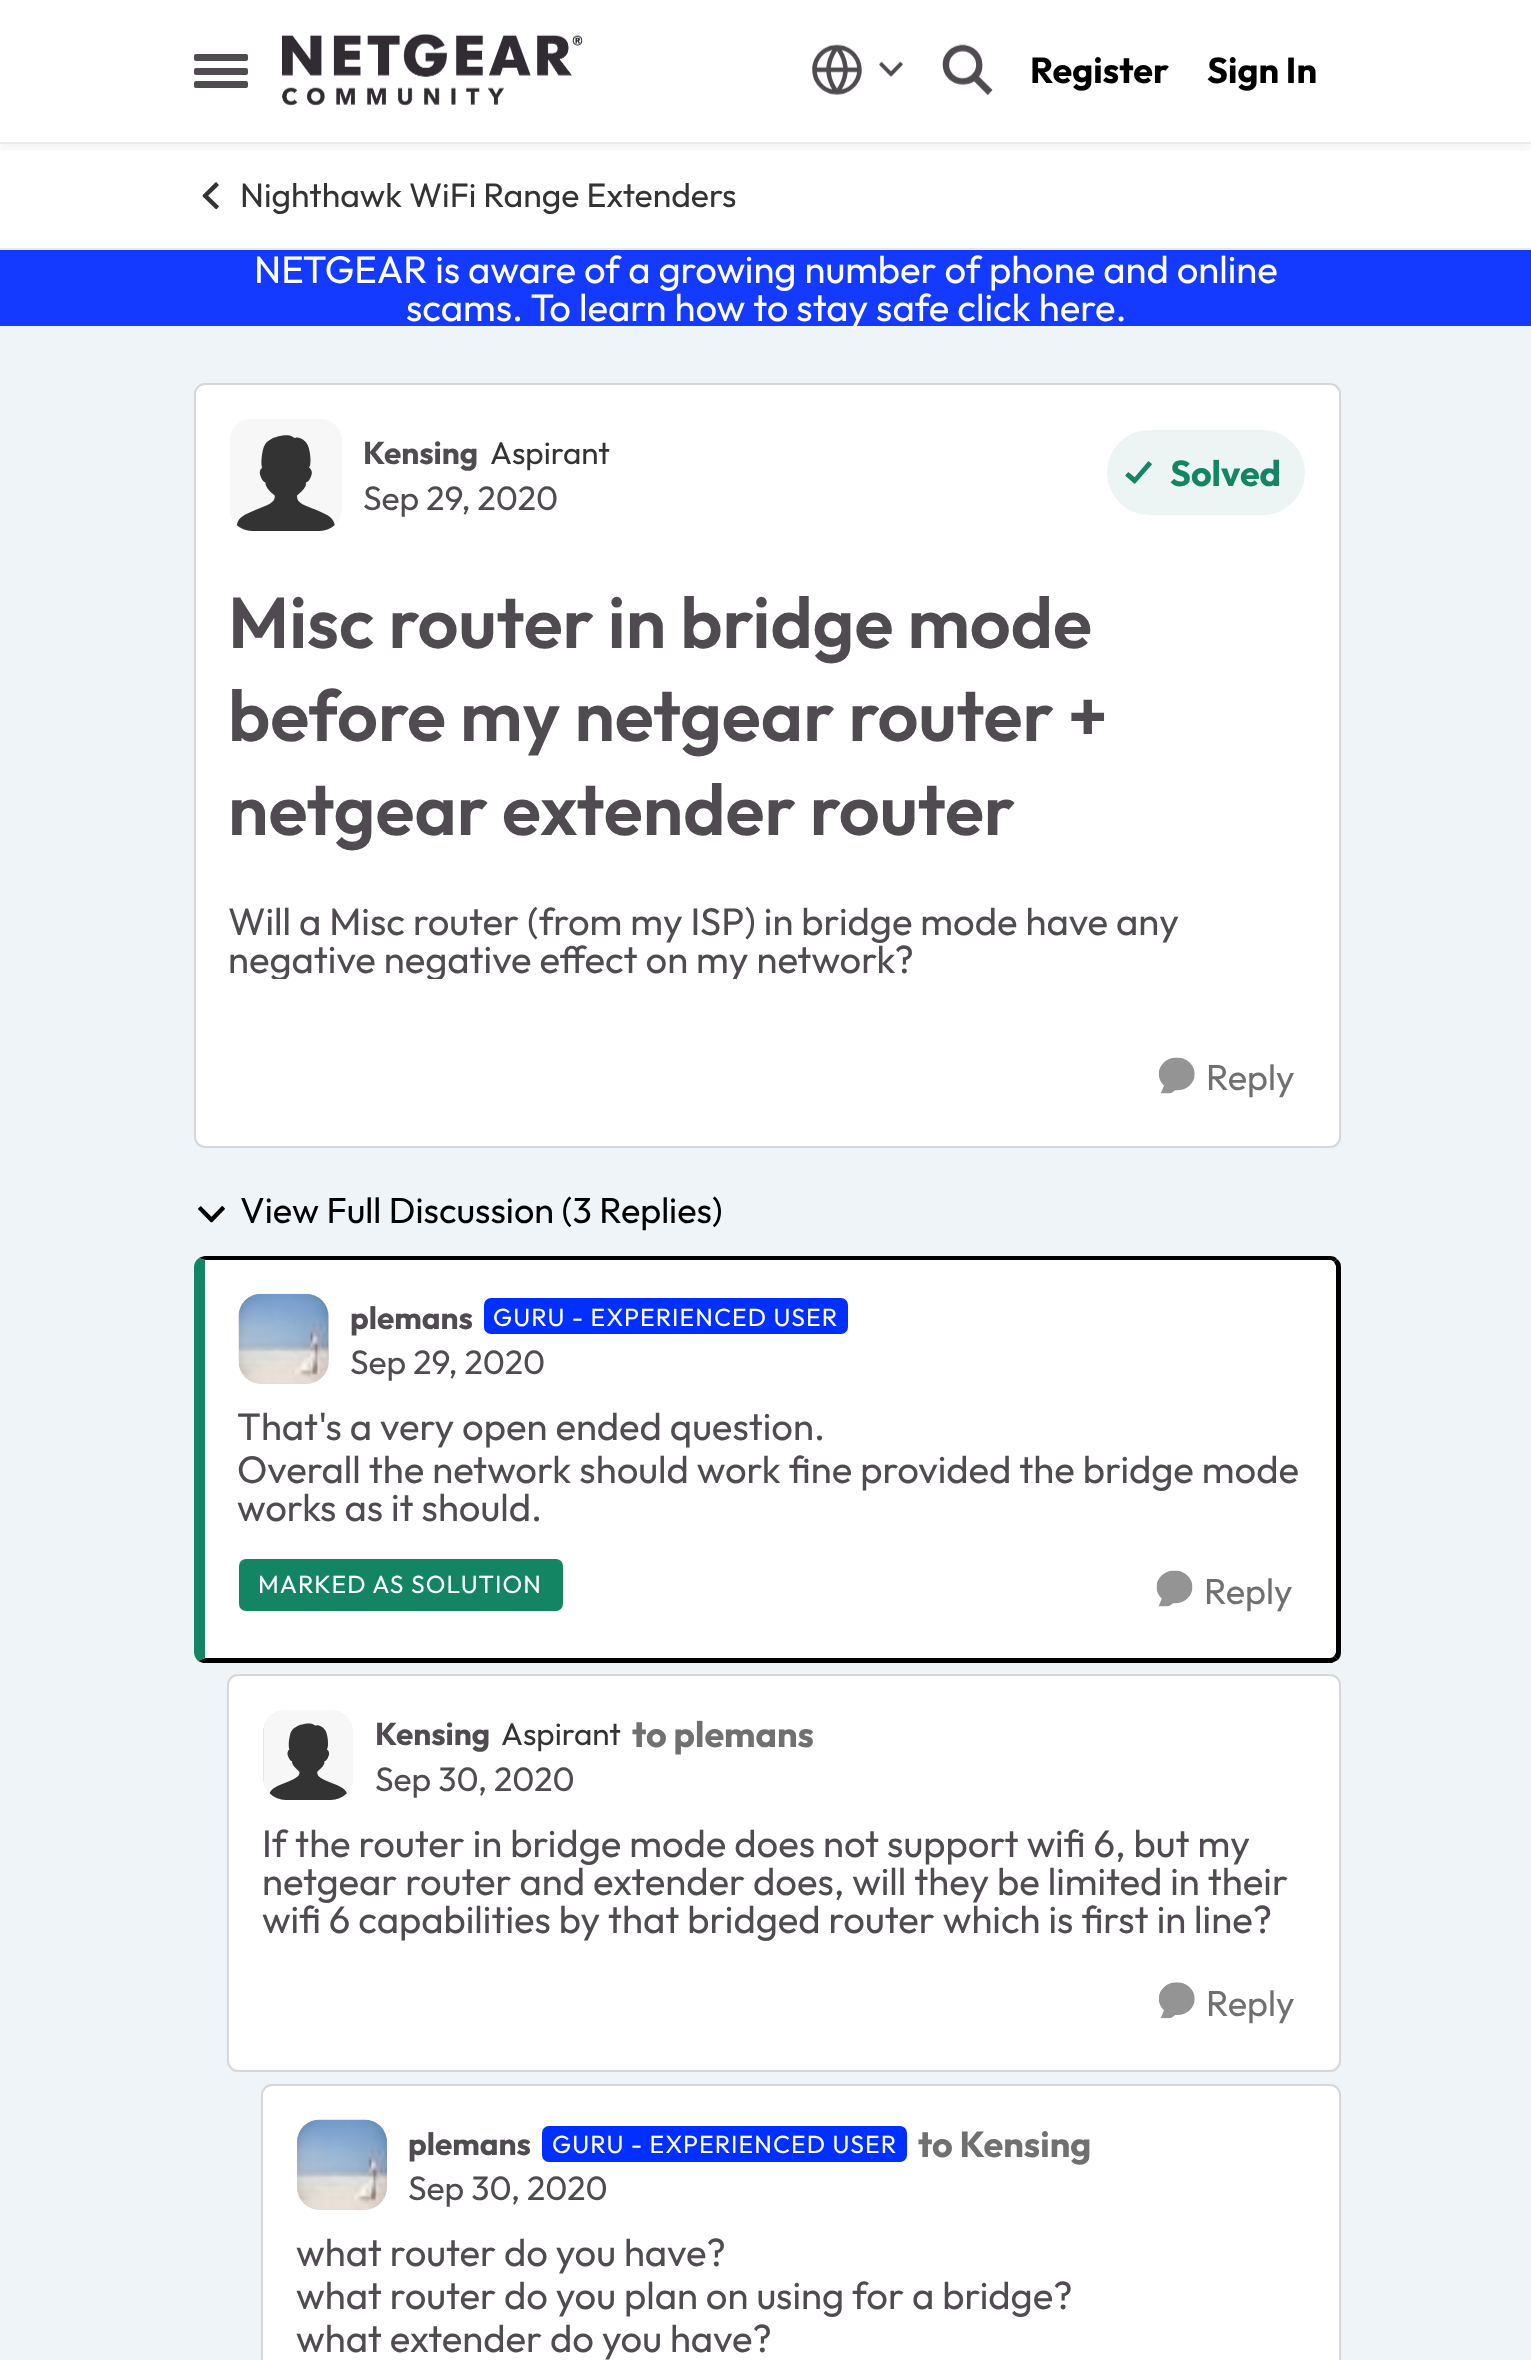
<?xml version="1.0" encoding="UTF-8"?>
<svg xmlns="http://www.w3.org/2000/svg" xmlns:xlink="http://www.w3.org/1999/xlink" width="1531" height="2360">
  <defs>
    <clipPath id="clip1"><rect x="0" y="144" width="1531" height="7" /></clipPath>
    <clipPath id="clip2"><rect x="230" y="902" width="1075" height="77" /></clipPath>
  </defs>
  <rect width="100%" height="100%" fill="#eff4f9" />
  <rect width="1531" height="248" fill="#ffffff" />
  <g clip-path="url(#clip1)">
    <rect y="5" width="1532" height="144" fill="#333333" fill-opacity="0.06" filter="blur(4.5px)" />
  </g>
  <rect y="142" width="1531" height="2" fill="#ebebeb" />
  <rect x="194" y="54" width="54" height="7" rx="2" fill="#504b51" />
  <rect x="194" y="68" width="54" height="7" rx="2" fill="#504b51" />
  <rect x="194" y="81" width="54" height="7" rx="2" fill="#504b51" />
  <image x="282" y="34" width="301" height="72" xlink:href="image1.png" />
  <image x="812" y="44" width="50" height="51" xlink:href="image2.png" />
  <image x="879" y="61" width="24" height="16" xlink:href="image3.png" />
  <image x="942" y="44" width="51" height="52" xlink:href="image4.png" />
  <rect y="248" width="1531" height="2" fill="#ebebeb" />
  <image x="202" y="182" width="17" height="28" xlink:href="image5.png" />
  <rect y="250" width="1531" height="76" fill="#1439ff" />
  <rect x="194" y="383" width="1147" height="765" rx="11" fill="#ffffff" />
  <rect x="195" y="384" width="1145" height="763" rx="10" fill="none" stroke="#000000" stroke-opacity="0.16" stroke-width="2" />
  <image x="230" y="419" width="112" height="112" xlink:href="image6.png" />
  <rect x="1107" y="430" width="198" height="85" rx="42.5" fill="#ecf5f3" />
  <image x="1125" y="461" width="27" height="23" xlink:href="image7.png" />
  <image x="1158" y="1057" width="37" height="37" xlink:href="image8.png" />
  <image x="198" y="1206" width="27" height="17" xlink:href="image9.png" />
  <path d="M 205 1260 h 1125 c 3 0 6 3 6 7 v 385 c 0 3 -3 6 -6 6 h -1125 z" fill="#ffffff" />
  <path d="M 205 1256 c -2 0 -4 1 -6 2 l 6 2 h 1125 c 2 0 3 1 4 2 l 3 -3 c -1 -2 -4 -3 -7 -3 z" fill="#000000" />
  <path d="M 1337 1259 c 3 2 4 5 4 8 v 385 c 0 3 -1 6 -3 8 l -4 -4 c 1 -1 2 -3 2 -4 v -386 l -2 -4 z" fill="#000000" />
  <path d="M 203 1663 l -5 -2 l 7 -3 h 1125 c 2 0 3 -1 4 -2 l 4 4 c -2 1 -4 2 -6 3 z" fill="#000000" />
  <path d="M 199 1258 c -3 2 -5 5 -5 9 v 385 c 0 4 2 7 4 9 l 7 -3 v -398 z" fill="#148563" />
  <rect x="239" y="1294" width="90" height="90" rx="23" fill="#d9d9d9" />
  <image x="238" y="1293" width="91" height="91" xlink:href="image10.png" />
  <rect x="485" y="1299" width="362" height="34" rx="6" fill="#002fff" stroke="#002fff" stroke-width="2" />
  <rect x="239" y="1559" width="324" height="52" rx="7" fill="#148563" />
  <image x="1156" y="1570" width="37" height="37" xlink:href="image11.png" />
  <rect x="227" y="1674" width="1114" height="398" rx="11" fill="#ffffff" />
  <rect x="228" y="1675" width="1112" height="396" rx="10" fill="none" stroke="#000000" stroke-opacity="0.16" stroke-width="2" />
  <rect x="263" y="1710" width="90" height="90" rx="23" fill="#d9d9d9" />
  <image x="263" y="1710" width="90" height="90" xlink:href="image12.png" />
  <image x="1158" y="1982" width="37" height="37" xlink:href="image13.png" />
  <rect x="261" y="2084" width="1080" height="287" rx="11" fill="#ffffff" />
  <rect x="262" y="2085" width="1078" height="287" rx="10" fill="none" stroke="#000000" stroke-opacity="0.16" stroke-width="2" />
  <rect x="297" y="2120" width="90" height="90" rx="23" fill="#d9d9d9" />
  <image x="297" y="2119" width="90" height="91" xlink:href="image14.png" />
  <rect x="543" y="2127" width="363" height="34" rx="6" fill="#002fff" stroke="#002fff" stroke-width="2" />
  <text x="1030" y="83" style="font-family: Outfit; font-size: 36px; font-weight: bold; fill: #000000">Register</text>
  <text x="1207" y="83" style="font-family: Outfit; font-size: 36px; font-weight: bold; fill: #000000">Sign In</text>
  <text x="240" y="207" style="font-family: Outfit; font-size: 33.75px; fill: #333333">Nighthawk WiFi Range Extenders</text>
  <text x="254" y="283" style="font-family: Outfit; font-size: 38.25px; fill: #ffffff">NETGEAR is aware of a growing number of phone and online</text>
  <text x="406" y="321" style="font-family: Outfit; font-size: 38.25px; fill: #ffffff">scams. To learn how to stay safe click here.</text>
  <text x="363" y="464" style="font-family: Outfit; font-size: 31.5px; font-weight: bold; fill: #504b51">Kensing</text>
  <text x="490" y="464" style="font-family: Outfit; font-size: 31.5px; fill: #333333">Aspirant</text>
  <text x="363" y="510" style="font-family: Outfit; font-size: 33.75px; fill: #504b51">Sep 29, 2020</text>
  <text x="1170" y="486" style="font-family: Outfit; font-size: 36px; font-weight: bold; fill: #148563">Solved</text>
  <text x="228" y="648" style="font-family: Outfit; font-size: 72px; font-weight: 600; fill: #504b51">Misc router in bridge mode</text>
  <text x="228" y="741" style="font-family: Outfit; font-size: 72px; font-weight: 600; fill: #504b51">before my netgear router +</text>
  <text x="228" y="835" style="font-family: Outfit; font-size: 72px; font-weight: 600; fill: #504b51">netgear extender router</text>
  <text x="228" y="935" style="font-family: Outfit; font-size: 38.25px; fill: #504b51">Will a Misc router (from my ISP) in bridge mode have any</text>
  <g clip-path="url(#clip2)">
    <text x="228" y="973" style="font-family: Outfit; font-size: 38.25px; fill: #504b51">negative negative effect on my network?</text>
  </g>
  <text x="1206" y="1090" style="font-family: Outfit; font-size: 36px; fill: #707070">Reply</text>
  <text x="240" y="1223" style="font-family: Outfit; font-size: 36px; fill: #000000">View Full Discussion (3 Replies)</text>
  <text x="350" y="1329" style="font-family: Outfit; font-size: 31.5px; font-weight: bold; fill: #504b51">plemans</text>
  <text x="493" y="1326" style="font-family: Outfit; font-size: 24.75px; letter-spacing: 1.1px; fill: #ffffff">GURU - EXPERIENCED USER</text>
  <text x="350" y="1374" style="font-family: Outfit; font-size: 33.75px; fill: #504b51">Sep 29, 2020</text>
  <text x="237" y="1440" style="font-family: Outfit; font-size: 38.25px; fill: #504b51">That's a very open ended question.</text>
  <text x="237" y="1483" style="font-family: Outfit; font-size: 38.25px; fill: #504b51">Overall the network should work fine provided the bridge mode</text>
  <text x="237" y="1521" style="font-family: Outfit; font-size: 38.25px; fill: #504b51">works as it should.</text>
  <text x="258" y="1593" style="font-family: Outfit; font-size: 24.75px; letter-spacing: 1.1px; fill: #ffffff">MARKED AS SOLUTION</text>
  <text x="1204" y="1604" style="font-family: Outfit; font-size: 36px; fill: #707070">Reply</text>
  <text x="375" y="1745" style="font-family: Outfit; font-size: 31.5px; font-weight: bold; fill: #504b51">Kensing</text>
  <text x="501" y="1745" style="font-family: Outfit; font-size: 31.5px; fill: #333333">Aspirant</text>
  <text x="632" y="1747" style="font-family: Outfit; font-size: 36px; font-weight: bold; fill: #707070">to plemans</text>
  <text x="375" y="1791" style="font-family: Outfit; font-size: 33.75px; fill: #504b51">Sep 30, 2020</text>
  <text x="262" y="1857" style="font-family: Outfit; font-size: 38.25px; fill: #504b51">If the router in bridge mode does not support wifi 6, but my</text>
  <text x="262" y="1895" style="font-family: Outfit; font-size: 38.25px; fill: #504b51">netgear router and extender does, will they be limited in their</text>
  <text x="262" y="1933" style="font-family: Outfit; font-size: 38.25px; fill: #504b51">wifi 6 capabilities by that bridged router which is first in line?</text>
  <text x="1206" y="2016" style="font-family: Outfit; font-size: 36px; fill: #707070">Reply</text>
  <text x="408" y="2155" style="font-family: Outfit; font-size: 31.5px; font-weight: bold; fill: #504b51">plemans</text>
  <text x="552" y="2153" style="font-family: Outfit; font-size: 24.75px; letter-spacing: 1.1px; fill: #ffffff">GURU - EXPERIENCED USER</text>
  <text x="918" y="2157" style="font-family: Outfit; font-size: 36px; font-weight: bold; fill: #707070">to Kensing</text>
  <text x="408" y="2200" style="font-family: Outfit; font-size: 33.75px; fill: #504b51">Sep 30, 2020</text>
  <text x="296" y="2266" style="font-family: Outfit; font-size: 38.25px; fill: #504b51">what router do you have?</text>
  <text x="296" y="2309" style="font-family: Outfit; font-size: 38.25px; fill: #504b51">what router do you plan on using for a bridge?</text>
  <text x="296" y="2352" style="font-family: Outfit; font-size: 38.25px; fill: #504b51">what extender do you have?</text>
</svg>
